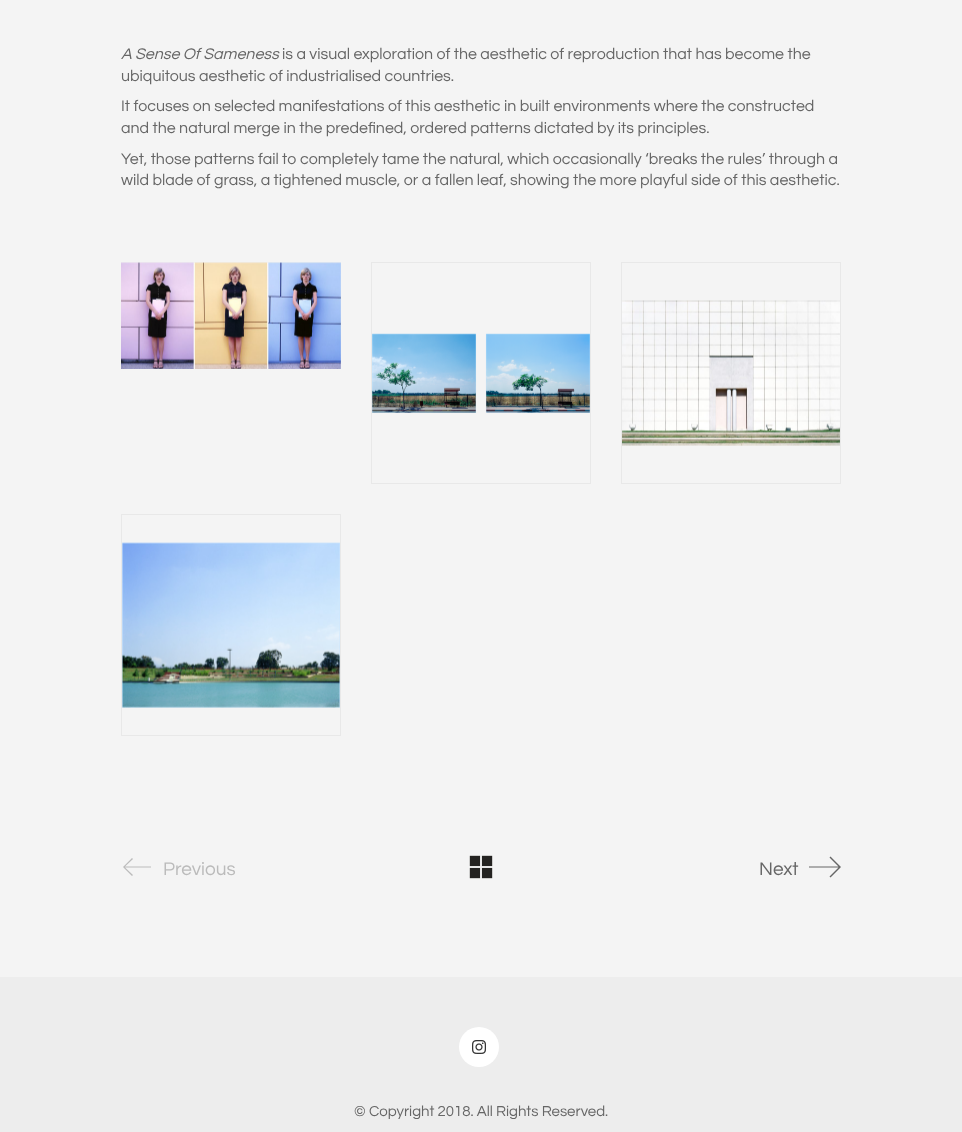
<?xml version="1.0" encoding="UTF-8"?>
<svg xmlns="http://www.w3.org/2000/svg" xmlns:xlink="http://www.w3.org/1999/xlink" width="962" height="1132">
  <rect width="100%" height="100%" fill="#f4f4f4" />
  <rect x="121" y="262" width="220" height="1" fill="#eeeeee" />
  <image x="121" y="262" width="220" height="107" xlink:href="image1.png" />
  <rect x="371.5" y="262.5" width="219" height="221" fill="none" stroke="#e8e8e8" />
  <image x="372" y="333" width="218" height="80" xlink:href="image2.png" />
  <rect x="621.5" y="262.5" width="219" height="221" fill="none" stroke="#e8e8e8" />
  <image x="622" y="300" width="218" height="146" xlink:href="image3.png" />
  <rect x="121.5" y="514.5" width="219" height="221" fill="none" stroke="#e8e8e8" />
  <image x="122" y="542" width="218" height="166" xlink:href="image4.png" />
  <path d="M 151 866.5 h -26 l 8 -7.5 l -1 -1 l -9 9 l 9 9 l 1 -1 l -8 -7.5 h 26 z" fill="#bbbbbb" />
  <image x="469" y="855" width="24" height="24" xlink:href="image5.png" />
  <path d="M 830.5 856.5 l -1 1 l 9 9 h -29.5 v 1 h 29.5 l -9 9 l 1 1 l 10.5 -10.5 z" fill="#666666" />
  <rect y="977" width="962" height="155" fill="#ededed" />
  <circle cx="479" cy="1047" r="20" fill="#ffffff" />
  <image x="472" y="1040" width="14" height="14" xlink:href="image6.png" />
  <text x="121" y="59" style="font-family: Questrial; font-size: 16px; font-style: italic; fill: #666666">A Sense Of Sameness</text>
  <text x="282" y="59" style="font-family: Questrial; font-size: 16px; fill: #666666">is a visual exploration of the aesthetic of reproduction that has become the</text>
  <text x="121" y="81" style="font-family: Questrial; font-size: 16px; fill: #666666">ubiquitous aesthetic of industrialised countries.</text>
  <text x="121" y="111" style="font-family: Questrial; font-size: 16px; fill: #666666">It focuses on selected manifestations of this aesthetic in built environments where the constructed</text>
  <text x="121" y="133" style="font-family: Questrial; font-size: 16px; fill: #666666">and the natural merge in the predefined, ordered patterns dictated by its principles.</text>
  <text x="121" y="164" style="font-family: Questrial; font-size: 16px; fill: #666666">Yet, those patterns fail to completely tame the natural, which occasionally ‘breaks the rules’ through a</text>
  <text x="121" y="185" style="font-family: Questrial; font-size: 16px; fill: #666666">wild blade of grass, a tightened muscle, or a fallen leaf, showing the more playful side of this aesthetic.</text>
  <text x="163" y="875" style="font-family: Questrial; font-size: 19px; fill: #bbbbbb">Previous</text>
  <text x="759" y="875" style="font-family: Questrial; font-size: 19px; fill: #666666">Next</text>
  <text x="354" y="1116" style="font-family: Questrial; font-size: 15px; fill: #666666">© Copyright 2018. All Rights Reserved.</text>
</svg>
